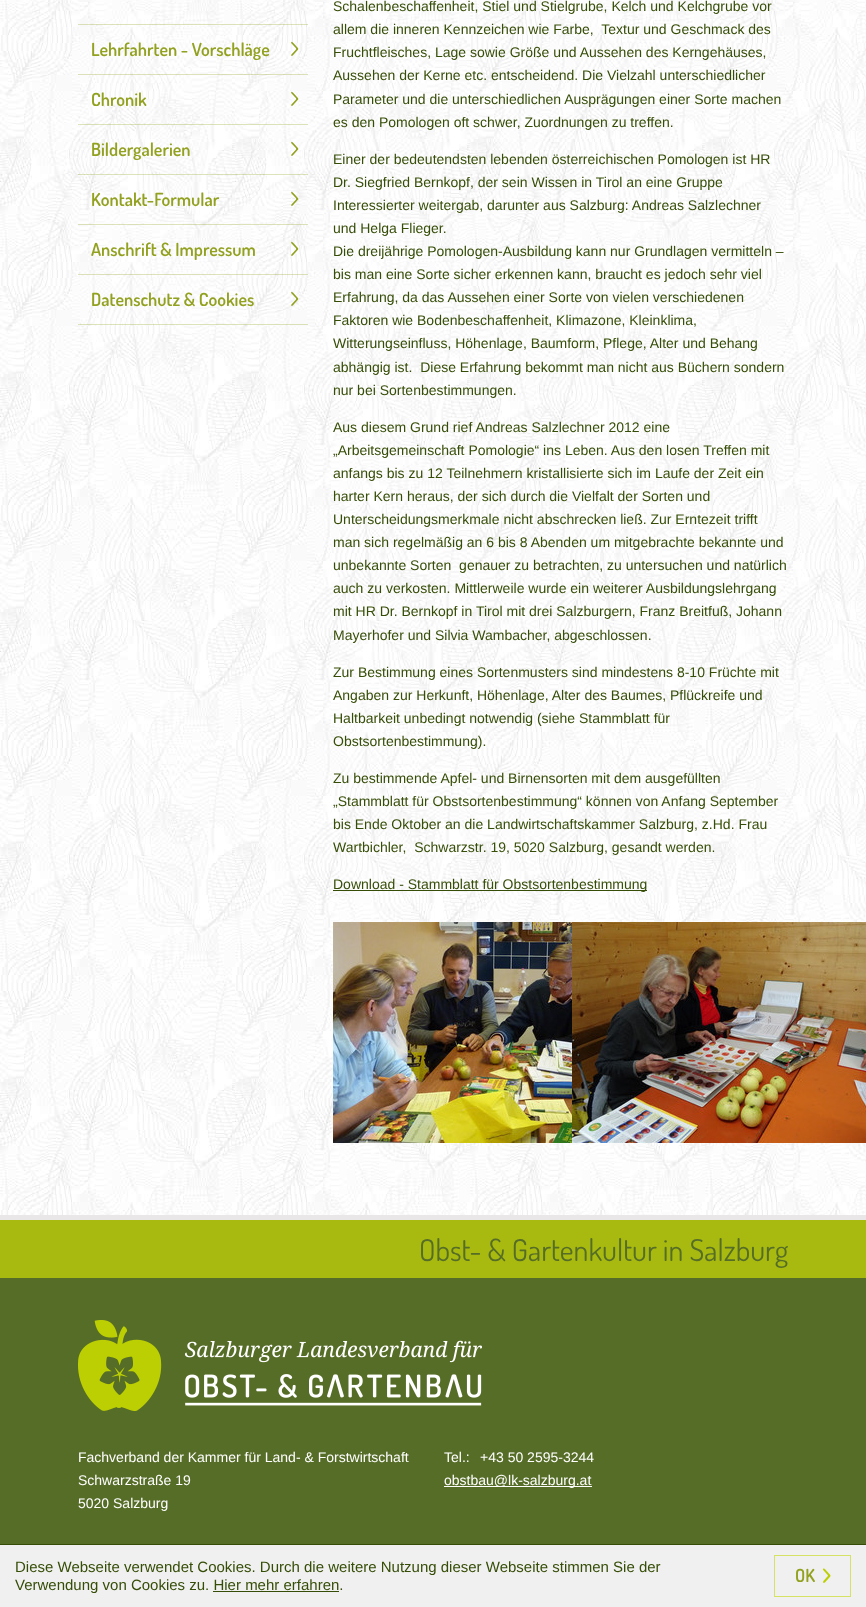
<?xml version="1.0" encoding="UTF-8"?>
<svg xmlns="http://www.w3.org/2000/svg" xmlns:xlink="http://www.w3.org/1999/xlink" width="866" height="1607">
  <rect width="100%" height="100%" fill="#ffffff" />
  <image x="0" y="0" width="866" height="1215" xlink:href="image1.png" />
  <rect y="1215" width="866" height="5" fill="#e9e7e7" />
  <rect x="78" y="24" width="230" height="1" fill="#93a121" fill-opacity="0.3" />
  <rect x="78" y="74" width="230" height="1" fill="#93a121" fill-opacity="0.3" />
  <rect x="78" y="124" width="230" height="1" fill="#93a121" fill-opacity="0.3" />
  <rect x="78" y="174" width="230" height="1" fill="#93a121" fill-opacity="0.3" />
  <rect x="78" y="224" width="230" height="1" fill="#93a121" fill-opacity="0.3" />
  <rect x="78" y="274" width="230" height="1" fill="#93a121" fill-opacity="0.3" />
  <rect x="78" y="324" width="230" height="1" fill="#93a121" fill-opacity="0.3" />
  <rect x="333" y="890" width="314" height="1" fill="#364d07" />
  <image x="333" y="922" width="239" height="221" xlink:href="image2.png" />
  <image x="572" y="922" width="294" height="221" xlink:href="image3.png" />
  <rect y="1220" width="866" height="58" fill="#a8ba0f" />
  <rect y="1278" width="866" height="266" fill="#566d27" />
  <image x="78" y="1320" width="404" height="91" xlink:href="image4.png" />
  <rect x="444" y="1486" width="148" height="1" fill="#ffffff" />
  <rect y="1545" width="866" height="62" fill="#f0f0f0" />
  <rect y="1544" width="866" height="1" fill="#364d07" />
  <rect x="213" y="1591" width="126" height="1" fill="#364d07" />
  <rect x="774.5" y="1555.5" width="76" height="41" fill="none" stroke="#d6e264" />
  <text x="91" y="56" style="font-family: Dosis; font-size: 18px; font-weight: 600; fill: #93a120">Lehrfahrten - Vorschläge</text>
  <text x="291" y="55" style="font-family: 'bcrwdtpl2'; font-size: 14px; fill: #93a120">≻</text>
  <text x="91" y="106" style="font-family: Dosis; font-size: 18px; font-weight: 600; fill: #93a120">Chronik</text>
  <text x="291" y="105" style="font-family: 'bcrwdtpl2'; font-size: 14px; fill: #93a120">≻</text>
  <text x="91" y="156" style="font-family: Dosis; font-size: 18px; font-weight: 600; fill: #93a120">Bildergalerien</text>
  <text x="291" y="155" style="font-family: 'bcrwdtpl2'; font-size: 14px; fill: #93a120">≻</text>
  <text x="91" y="206" style="font-family: Dosis; font-size: 18px; font-weight: 600; fill: #93a120">Kontakt-Formular</text>
  <text x="291" y="205" style="font-family: 'bcrwdtpl2'; font-size: 14px; fill: #93a120">≻</text>
  <text x="91" y="256" style="font-family: Dosis; font-size: 18px; font-weight: 600; fill: #93a120">Anschrift &amp; Impressum</text>
  <text x="291" y="255" style="font-family: 'bcrwdtpl2'; font-size: 14px; fill: #93a120">≻</text>
  <text x="91" y="306" style="font-family: Dosis; font-size: 18px; font-weight: 600; fill: #93a120">Datenschutz &amp; Cookies</text>
  <text x="291" y="305" style="font-family: 'bcrwdtpl2'; font-size: 14px; fill: #93a120">≻</text>
  <text x="333" y="11" style="font-family: Liberation Sans; font-size: 14px; fill: #364d07">Schalenbeschaffenheit, Stiel und Stielgrube, Kelch und Kelchgrube vor</text>
  <text x="333" y="34" style="font-family: Liberation Sans; font-size: 14px; fill: #364d07" xml:space="preserve">allem die inneren Kennzeichen wie Farbe,  Textur und Geschmack des</text>
  <text x="333" y="57" style="font-family: Liberation Sans; font-size: 14px; fill: #364d07">Fruchtfleisches, Lage sowie Größe und Aussehen des Kerngehäuses,</text>
  <text x="333" y="80" style="font-family: Liberation Sans; font-size: 14px; fill: #364d07">Aussehen der Kerne etc. entscheidend. Die Vielzahl unterschiedlicher</text>
  <text x="333" y="104" style="font-family: Liberation Sans; font-size: 14px; fill: #364d07">Parameter und die unterschiedlichen Ausprägungen einer Sorte machen</text>
  <text x="333" y="127" style="font-family: Liberation Sans; font-size: 14px; fill: #364d07">es den Pomologen oft schwer, Zuordnungen zu treffen.</text>
  <text x="333" y="164" style="font-family: Liberation Sans; font-size: 14px; fill: #364d07">Einer der bedeutendsten lebenden österreichischen Pomologen ist HR</text>
  <text x="333" y="187" style="font-family: Liberation Sans; font-size: 14px; fill: #364d07">Dr. Siegfried Bernkopf, der sein Wissen in Tirol an eine Gruppe</text>
  <text x="333" y="210" style="font-family: Liberation Sans; font-size: 14px; fill: #364d07">Interessierter weitergab, darunter aus Salzburg: Andreas Salzlechner</text>
  <text x="333" y="233" style="font-family: Liberation Sans; font-size: 14px; fill: #364d07">und Helga Flieger.</text>
  <text x="333" y="256" style="font-family: Liberation Sans; font-size: 14px; fill: #364d07">Die dreijährige Pomologen-Ausbildung kann nur Grundlagen vermitteln –</text>
  <text x="333" y="279" style="font-family: Liberation Sans; font-size: 14px; fill: #364d07">bis man eine Sorte sicher erkennen kann, braucht es jedoch sehr viel</text>
  <text x="333" y="302" style="font-family: Liberation Sans; font-size: 14px; fill: #364d07">Erfahrung, da das Aussehen einer Sorte von vielen verschiedenen</text>
  <text x="333" y="325" style="font-family: Liberation Sans; font-size: 14px; fill: #364d07">Faktoren wie Bodenbeschaffenheit, Klimazone, Kleinklima,</text>
  <text x="333" y="348" style="font-family: Liberation Sans; font-size: 14px; fill: #364d07">Witterungseinfluss, Höhenlage, Baumform, Pflege, Alter und Behang</text>
  <text x="333" y="372" style="font-family: Liberation Sans; font-size: 14px; fill: #364d07" xml:space="preserve">abhängig ist.  Diese Erfahrung bekommt man nicht aus Büchern sondern</text>
  <text x="333" y="395" style="font-family: Liberation Sans; font-size: 14px; fill: #364d07">nur bei Sortenbestimmungen.</text>
  <text x="333" y="432" style="font-family: Liberation Sans; font-size: 14px; fill: #364d07">Aus diesem Grund rief Andreas Salzlechner 2012 eine</text>
  <text x="333" y="455" style="font-family: Liberation Sans; font-size: 14px; fill: #364d07">„Arbeitsgemeinschaft Pomologie“ ins Leben. Aus den losen Treffen mit</text>
  <text x="333" y="478" style="font-family: Liberation Sans; font-size: 14px; fill: #364d07">anfangs bis zu 12 Teilnehmern kristallisierte sich im Laufe der Zeit ein</text>
  <text x="333" y="501" style="font-family: Liberation Sans; font-size: 14px; fill: #364d07">harter Kern heraus, der sich durch die Vielfalt der Sorten und</text>
  <text x="333" y="524" style="font-family: Liberation Sans; font-size: 14px; fill: #364d07">Unterscheidungsmerkmale nicht abschrecken ließ. Zur Erntezeit trifft</text>
  <text x="333" y="547" style="font-family: Liberation Sans; font-size: 14px; fill: #364d07">man sich regelmäßig an 6 bis 8 Abenden um mitgebrachte bekannte und</text>
  <text x="333" y="570" style="font-family: Liberation Sans; font-size: 14px; fill: #364d07" xml:space="preserve">unbekannte Sorten  genauer zu betrachten, zu untersuchen und natürlich</text>
  <text x="333" y="593" style="font-family: Liberation Sans; font-size: 14px; fill: #364d07">auch zu verkosten. Mittlerweile wurde ein weiterer Ausbildungslehrgang</text>
  <text x="333" y="616" style="font-family: Liberation Sans; font-size: 14px; fill: #364d07">mit HR Dr. Bernkopf in Tirol mit drei Salzburgern, Franz Breitfuß, Johann</text>
  <text x="333" y="640" style="font-family: Liberation Sans; font-size: 14px; fill: #364d07">Mayerhofer und Silvia Wambacher, abgeschlossen.</text>
  <text x="333" y="677" style="font-family: Liberation Sans; font-size: 14px; fill: #364d07">Zur Bestimmung eines Sortenmusters sind mindestens 8-10 Früchte mit</text>
  <text x="333" y="700" style="font-family: Liberation Sans; font-size: 14px; fill: #364d07">Angaben zur Herkunft, Höhenlage, Alter des Baumes, Pflückreife und</text>
  <text x="333" y="723" style="font-family: Liberation Sans; font-size: 14px; fill: #364d07">Haltbarkeit unbedingt notwendig (siehe Stammblatt für</text>
  <text x="333" y="746" style="font-family: Liberation Sans; font-size: 14px; fill: #364d07">Obstsortenbestimmung).</text>
  <text x="333" y="783" style="font-family: Liberation Sans; font-size: 14px; fill: #364d07">Zu bestimmende Apfel- und Birnensorten mit dem ausgefüllten</text>
  <text x="333" y="806" style="font-family: Liberation Sans; font-size: 14px; fill: #364d07">„Stammblatt für Obstsortenbestimmung“ können von Anfang September</text>
  <text x="333" y="829" style="font-family: Liberation Sans; font-size: 14px; fill: #364d07">bis Ende Oktober an die Landwirtschaftskammer Salzburg, z.Hd. Frau</text>
  <text x="333" y="852" style="font-family: Liberation Sans; font-size: 14px; fill: #364d07" xml:space="preserve">Wartbichler,  Schwarzstr. 19, 5020 Salzburg, gesandt werden.</text>
  <text x="333" y="889" style="font-family: Liberation Sans; font-size: 14px; fill: #364d07">Download - Stammblatt für Obstsortenbestimmung</text>
  <text x="419" y="1261" style="font-family: Dosis; font-size: 30px; fill: #566d27">Obst- &amp; Gartenkultur in Salzburg</text>
  <text x="78" y="1462" style="font-family: Liberation Sans; font-size: 14px; fill: #ffffff">Fachverband der Kammer für Land- &amp; Forstwirtschaft</text>
  <text x="78" y="1485" style="font-family: Liberation Sans; font-size: 14px; fill: #ffffff">Schwarzstraße 19</text>
  <text x="78" y="1508" style="font-family: Liberation Sans; font-size: 14px; fill: #ffffff">5020 Salzburg</text>
  <text x="444" y="1462" style="font-family: Liberation Sans; font-size: 14px; fill: #ffffff">Tel.:</text>
  <text x="480" y="1462" style="font-family: Liberation Sans; font-size: 14px; fill: #ffffff">+43 50 2595-3244</text>
  <text x="444" y="1485" style="font-family: Liberation Sans; font-size: 14px; fill: #ffffff">obstbau@lk-salzburg.at</text>
  <text x="15" y="1572" style="font-family: Liberation Sans; font-size: 15px; fill: #364d07">Diese Webseite verwendet Cookies. Durch die weitere Nutzung dieser Webseite stimmen Sie der</text>
  <text x="15" y="1590" style="font-family: Liberation Sans; font-size: 15px; fill: #364d07">Verwendung von Cookies zu. Hier mehr erfahren.</text>
  <text x="795" y="1582" style="font-family: Dosis; font-size: 18px; font-weight: 600; fill: #93a120">OK</text>
  <text x="823" y="1582" style="font-family: 'bcrwdtpl2'; font-size: 14px; font-weight: bold; fill: #bccf02">≻</text>
</svg>
